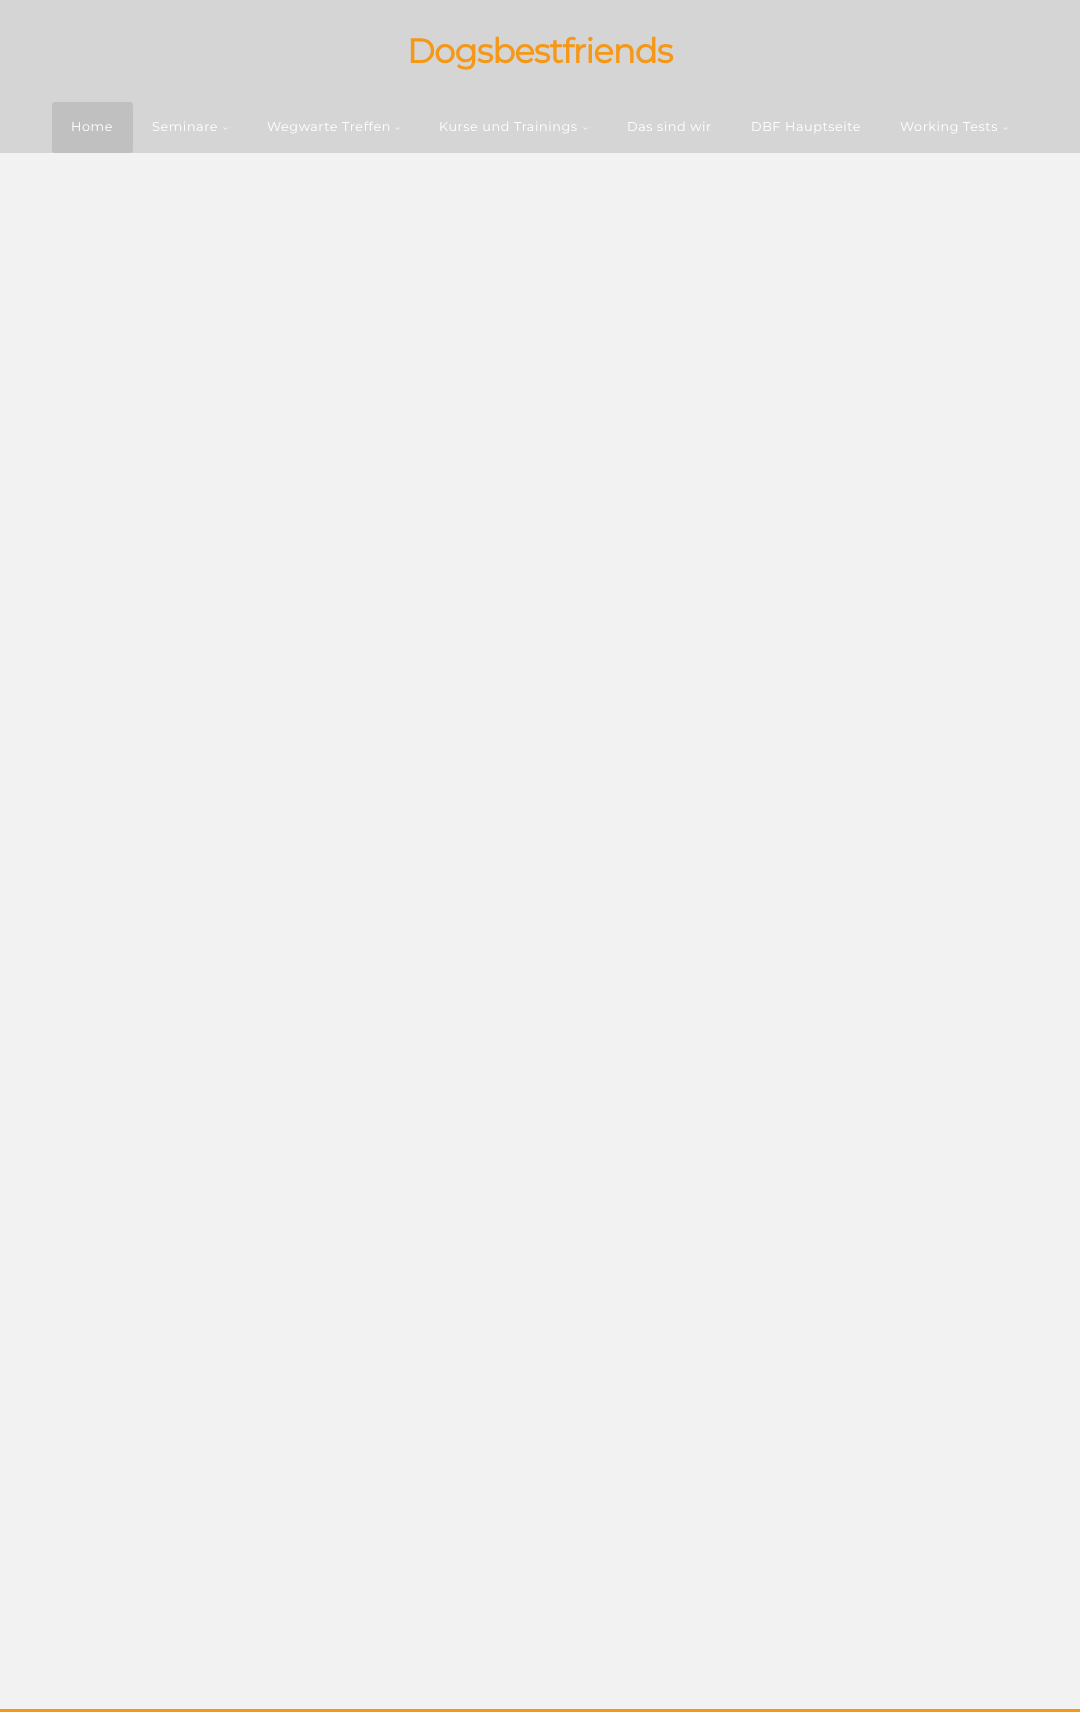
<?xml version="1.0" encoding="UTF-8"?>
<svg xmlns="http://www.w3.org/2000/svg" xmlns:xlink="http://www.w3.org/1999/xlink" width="1080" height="1712">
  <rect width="100%" height="100%" fill="#f2f2f2" />
  <rect width="1080" height="153" fill="#d5d5d5" />
  <rect x="52" y="102" width="81" height="51" rx="3" fill="#c0c0c0" />
  <image x="223" y="127" width="5" height="3" xlink:href="image1.png" />
  <image x="395" y="127" width="5" height="3" xlink:href="image1.png" />
  <image x="583" y="127" width="5" height="3" xlink:href="image1.png" />
  <image x="1003" y="127" width="5" height="3" xlink:href="image1.png" />
  <rect y="1709" width="1080" height="3" fill="#f59818" />
  <text x="407" y="63" style="font-family: Montserrat; font-size: 34px; font-weight: bold; letter-spacing: -1px; fill: #f59818">Dogsbestfriends</text>
  <text x="71" y="131" style="font-family: Montserrat; font-size: 12.75px; font-weight: 100; letter-spacing: 0.6px; fill: #ffffff">Home</text>
  <text x="152" y="131" style="font-family: Montserrat; font-size: 12.75px; font-weight: 100; letter-spacing: 0.6px; fill: #ffffff">Seminare</text>
  <text x="267" y="131" style="font-family: Montserrat; font-size: 12.75px; font-weight: 100; letter-spacing: 0.6px; fill: #ffffff">Wegwarte Treffen</text>
  <text x="439" y="131" style="font-family: Montserrat; font-size: 12.75px; font-weight: 100; letter-spacing: 0.6px; fill: #ffffff">Kurse und Trainings</text>
  <text x="627" y="131" style="font-family: Montserrat; font-size: 12.75px; font-weight: 100; letter-spacing: 0.6px; fill: #ffffff">Das sind wir</text>
  <text x="751" y="131" style="font-family: Montserrat; font-size: 12.75px; font-weight: 100; letter-spacing: 0.6px; fill: #ffffff">DBF Hauptseite</text>
  <text x="900" y="131" style="font-family: Montserrat; font-size: 12.75px; font-weight: 100; letter-spacing: 0.6px; fill: #ffffff">Working Tests</text>
</svg>
